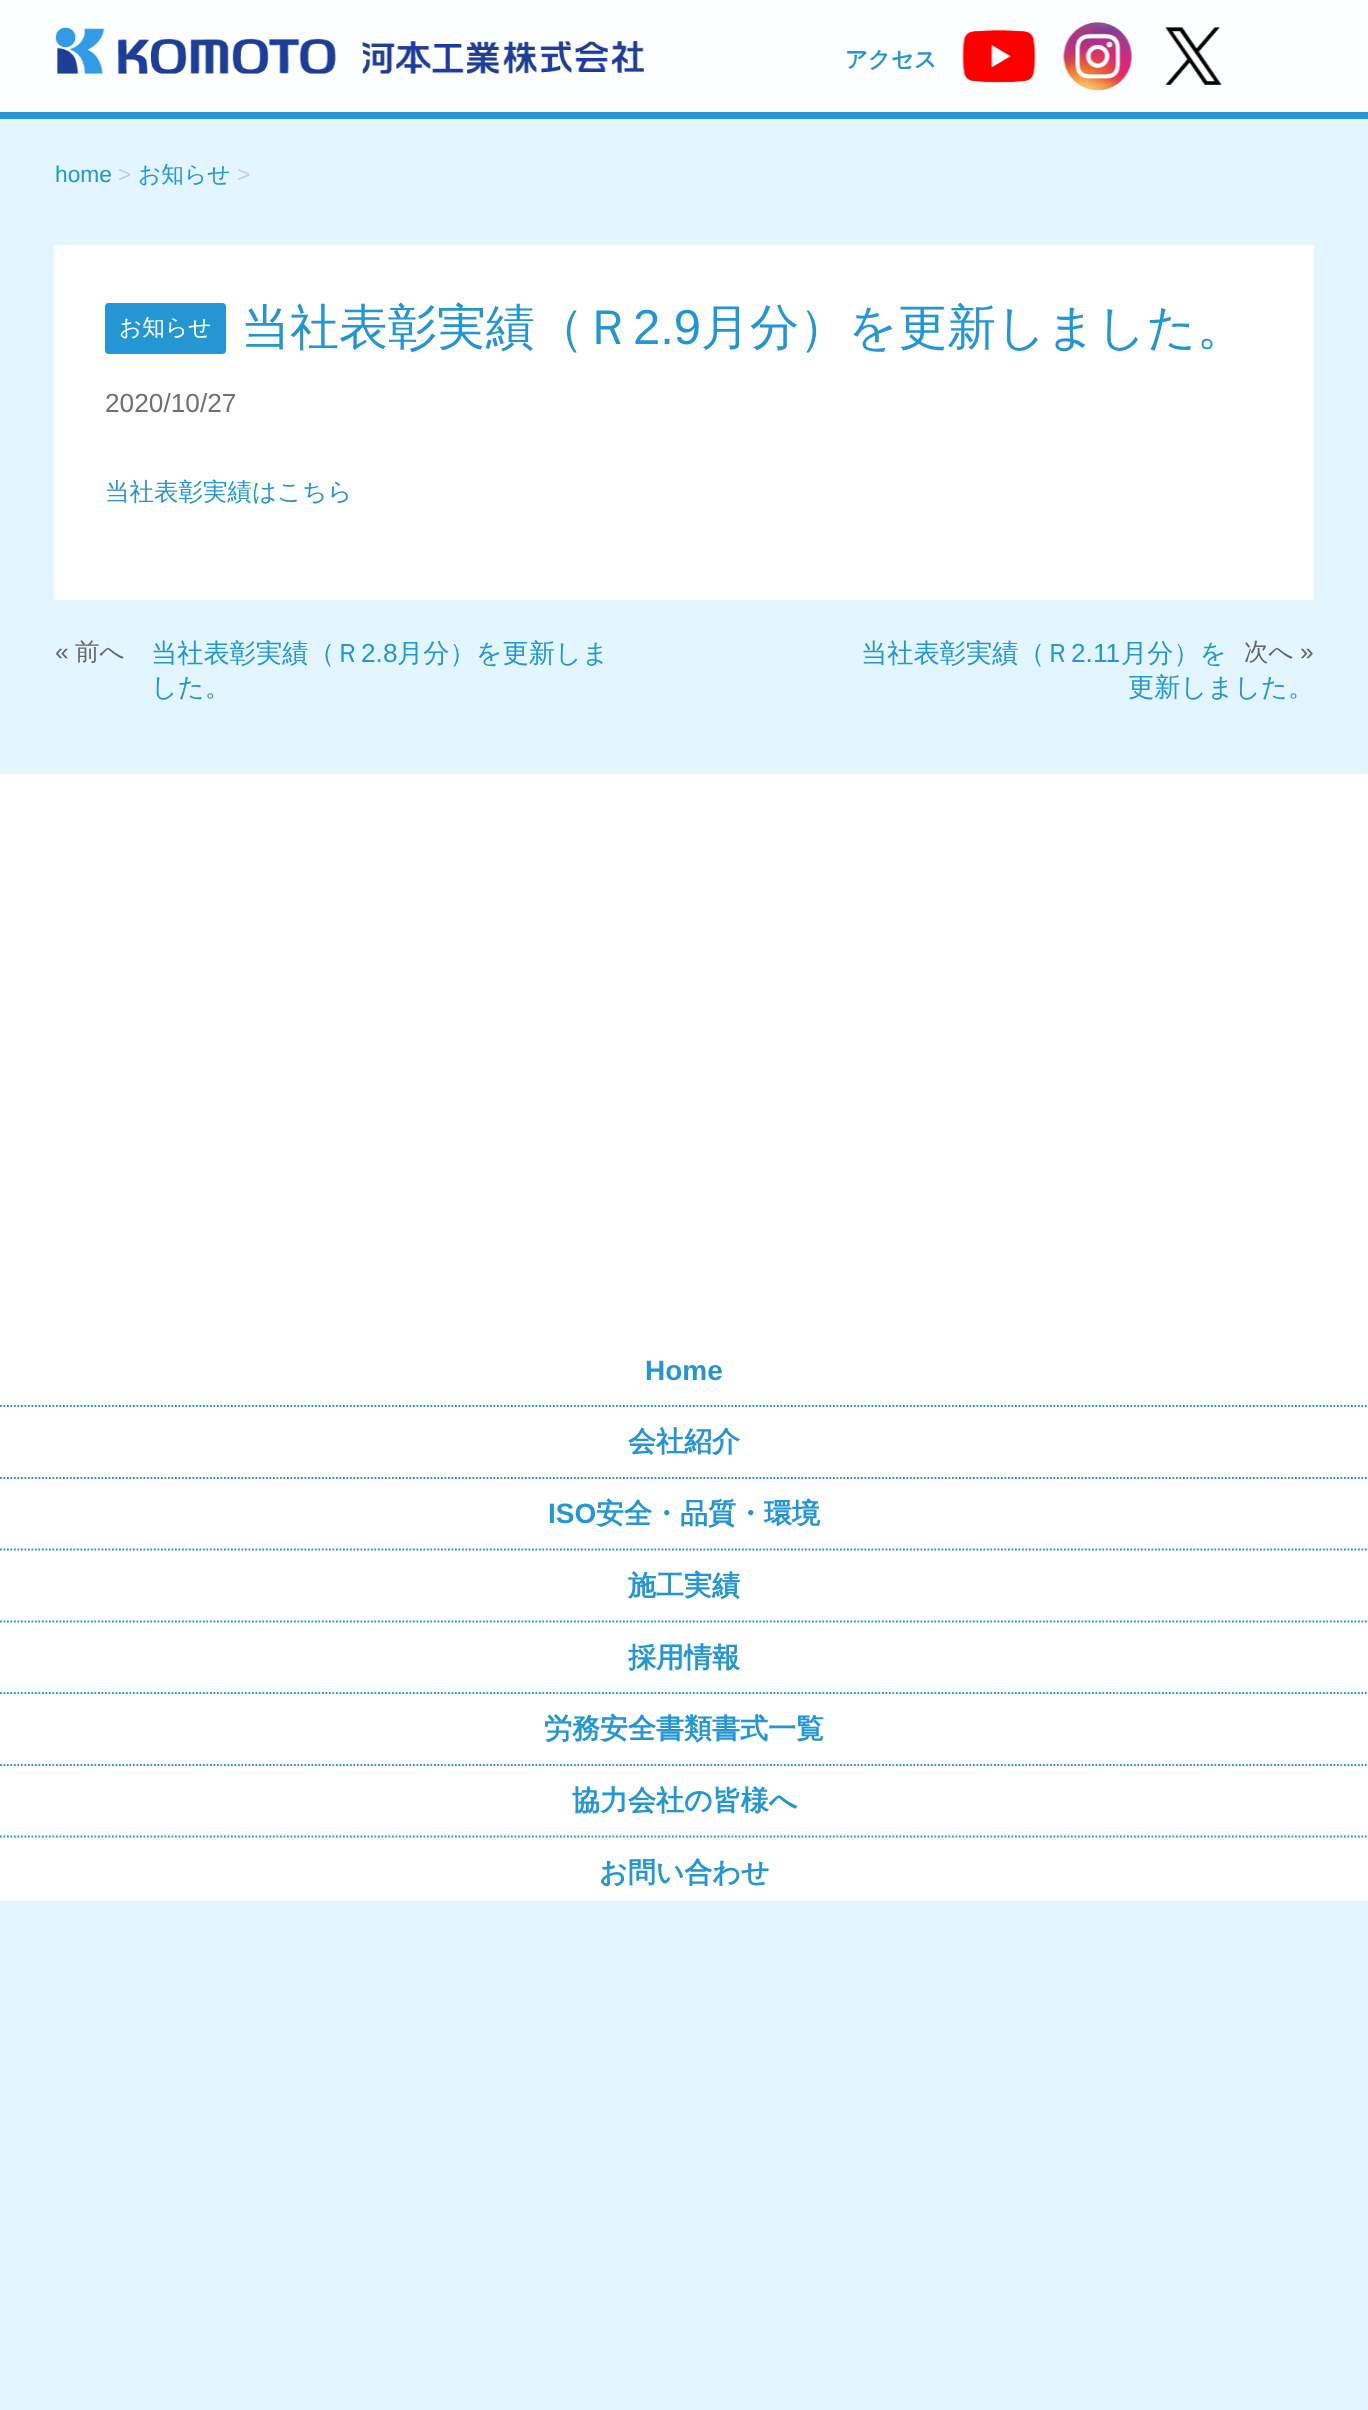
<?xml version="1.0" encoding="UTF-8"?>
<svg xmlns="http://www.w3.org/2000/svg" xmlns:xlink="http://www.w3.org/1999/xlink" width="1368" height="2410">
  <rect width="100%" height="100%" fill="#e3f6ff" />
  <rect width="1368" height="112" fill="#fcfeff" />
  <rect y="112" width="1368" height="7" fill="#2496d4" />
  <image x="55" y="27" width="590" height="47" xlink:href="image1.png" />
  <image x="962" y="30" width="74" height="53" xlink:href="image2.png" />
  <image x="1063" y="22" width="69" height="69" xlink:href="image3.png" />
  <image x="1165" y="27" width="57" height="58" xlink:href="image4.png" />
  <rect x="54" y="245" width="1260" height="355" fill="#ffffff" />
  <rect x="105" y="303" width="121" height="51" rx="4" fill="#2496d4" />
  <rect y="774" width="1368" height="1127" fill="#ffffff" />
  <path d="M 0 1406 h 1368.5" fill="none" stroke="#2496d4" stroke-width="1.8" stroke-dasharray="1.75 1.75" />
  <path d="M 0 1478 h 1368.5" fill="none" stroke="#2496d4" stroke-width="1.8" stroke-dasharray="1.75 1.75" />
  <path d="M 0 1549.5 h 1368.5" fill="none" stroke="#2496d4" stroke-width="1.8" stroke-dasharray="1.75 1.75" />
  <path d="M 0 1621.5 h 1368.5" fill="none" stroke="#2496d4" stroke-width="1.8" stroke-dasharray="1.75 1.75" />
  <path d="M 0 1693 h 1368.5" fill="none" stroke="#2496d4" stroke-width="1.8" stroke-dasharray="1.75 1.75" />
  <path d="M 0 1765 h 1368.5" fill="none" stroke="#2496d4" stroke-width="1.8" stroke-dasharray="1.75 1.75" />
  <path d="M 0 1836.5 h 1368.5" fill="none" stroke="#2496d4" stroke-width="1.8" stroke-dasharray="1.75 1.75" />
  <text x="845" y="67" style="font-family: WenQuanYi Zen Hei; font-size: 22.5px; font-weight: bold; fill: #2496d4">アクセス</text>
  <text x="55" y="182" style="font-family: Liberation Sans; font-size: 22.75px; fill: #2496d4">home</text>
  <text x="118" y="182" style="font-family: Liberation Sans; font-size: 22.75px; fill: #cccccc">&gt;</text>
  <text x="138" y="182" style="font-family: WenQuanYi Zen Hei; font-size: 22.75px; font-weight: 500; fill: #2496d4">お知らせ</text>
  <text x="237" y="182" style="font-family: Liberation Sans; font-size: 22.75px; fill: #cccccc">&gt;</text>
  <text x="119" y="335" style="font-family: WenQuanYi Zen Hei; font-size: 22.75px; font-weight: 500; fill: #ffffff">お知らせ</text>
  <text x="241" y="344" style="font-family: WenQuanYi Zen Hei; font-size: 49px; font-weight: 500; fill: #2496d4">当社表彰実績（Ｒ</text>
  <text x="633" y="344" style="font-family: Liberation Sans; font-size: 49px; fill: #2496d4">2.9</text>
  <text x="701" y="344" style="font-family: WenQuanYi Zen Hei; font-size: 49px; font-weight: 500; fill: #2496d4">月分）を更新しました。</text>
  <text x="105" y="412" style="font-family: Liberation Sans; font-size: 26.25px; fill: #717071">2020/10/27</text>
  <text x="105" y="500" style="font-family: WenQuanYi Zen Hei; font-size: 24.5px; font-weight: 500; fill: #2496d4">当社表彰実績はこちら</text>
  <text x="55" y="660" style="font-family: Liberation Sans; font-size: 24.5px; fill: #666666">«</text>
  <text x="75" y="660" style="font-family: WenQuanYi Zen Hei; font-size: 24.5px; font-weight: 500; fill: #666666">前へ</text>
  <text x="151" y="662" style="font-family: WenQuanYi Zen Hei; font-size: 26.25px; font-weight: 500; fill: #2496d4">当社表彰実績（Ｒ</text>
  <text x="361" y="662" style="font-family: Liberation Sans; font-size: 26.25px; fill: #2496d4">2.8</text>
  <text x="397" y="662" style="font-family: WenQuanYi Zen Hei; font-size: 26.25px; font-weight: 500; fill: #2496d4">月分）を更新しま</text>
  <text x="151" y="696" style="font-family: WenQuanYi Zen Hei; font-size: 26.25px; font-weight: 500; fill: #2496d4">した。</text>
  <text x="861" y="662" style="font-family: WenQuanYi Zen Hei; font-size: 26.25px; font-weight: 500; fill: #2496d4">当社表彰実績（Ｒ</text>
  <text x="1071" y="662" style="font-family: Liberation Sans; font-size: 26.25px; fill: #2496d4">2.11</text>
  <text x="1121" y="662" style="font-family: WenQuanYi Zen Hei; font-size: 26.25px; font-weight: 500; fill: #2496d4">月分）を</text>
  <text x="1128" y="696" style="font-family: WenQuanYi Zen Hei; font-size: 26.25px; font-weight: 500; fill: #2496d4">更新しました。</text>
  <text x="1244" y="660" style="font-family: WenQuanYi Zen Hei; font-size: 24.5px; font-weight: 500; fill: #666666">次へ</text>
  <text x="1300" y="660" style="font-family: Liberation Sans; font-size: 24.5px; fill: #666666">»</text>
  <text x="645" y="1380" style="font-family: Liberation Sans; font-size: 28px; font-weight: bold; fill: #2496d4">Home</text>
  <text x="628" y="1451" style="font-family: WenQuanYi Zen Hei; font-size: 28px; font-weight: bold; fill: #2496d4">会社紹介</text>
  <text x="548" y="1523" style="font-family: Liberation Sans; font-size: 28px; font-weight: bold; fill: #2496d4">ISO</text>
  <text x="596" y="1523" style="font-family: WenQuanYi Zen Hei; font-size: 28px; font-weight: bold; fill: #2496d4">安全・品質・環境</text>
  <text x="628" y="1595" style="font-family: WenQuanYi Zen Hei; font-size: 28px; font-weight: bold; fill: #2496d4">施工実績</text>
  <text x="628" y="1667" style="font-family: WenQuanYi Zen Hei; font-size: 28px; font-weight: bold; fill: #2496d4">採用情報</text>
  <text x="544" y="1738" style="font-family: WenQuanYi Zen Hei; font-size: 28px; font-weight: bold; fill: #2496d4">労務安全書類書式一覧</text>
  <text x="572" y="1810" style="font-family: WenQuanYi Zen Hei; font-size: 28px; font-weight: bold; fill: #2496d4">協力会社の皆様へ</text>
  <text x="599" y="1882" style="font-family: WenQuanYi Zen Hei; font-size: 28px; font-weight: bold; fill: #2496d4">お問い合わせ</text>
</svg>
